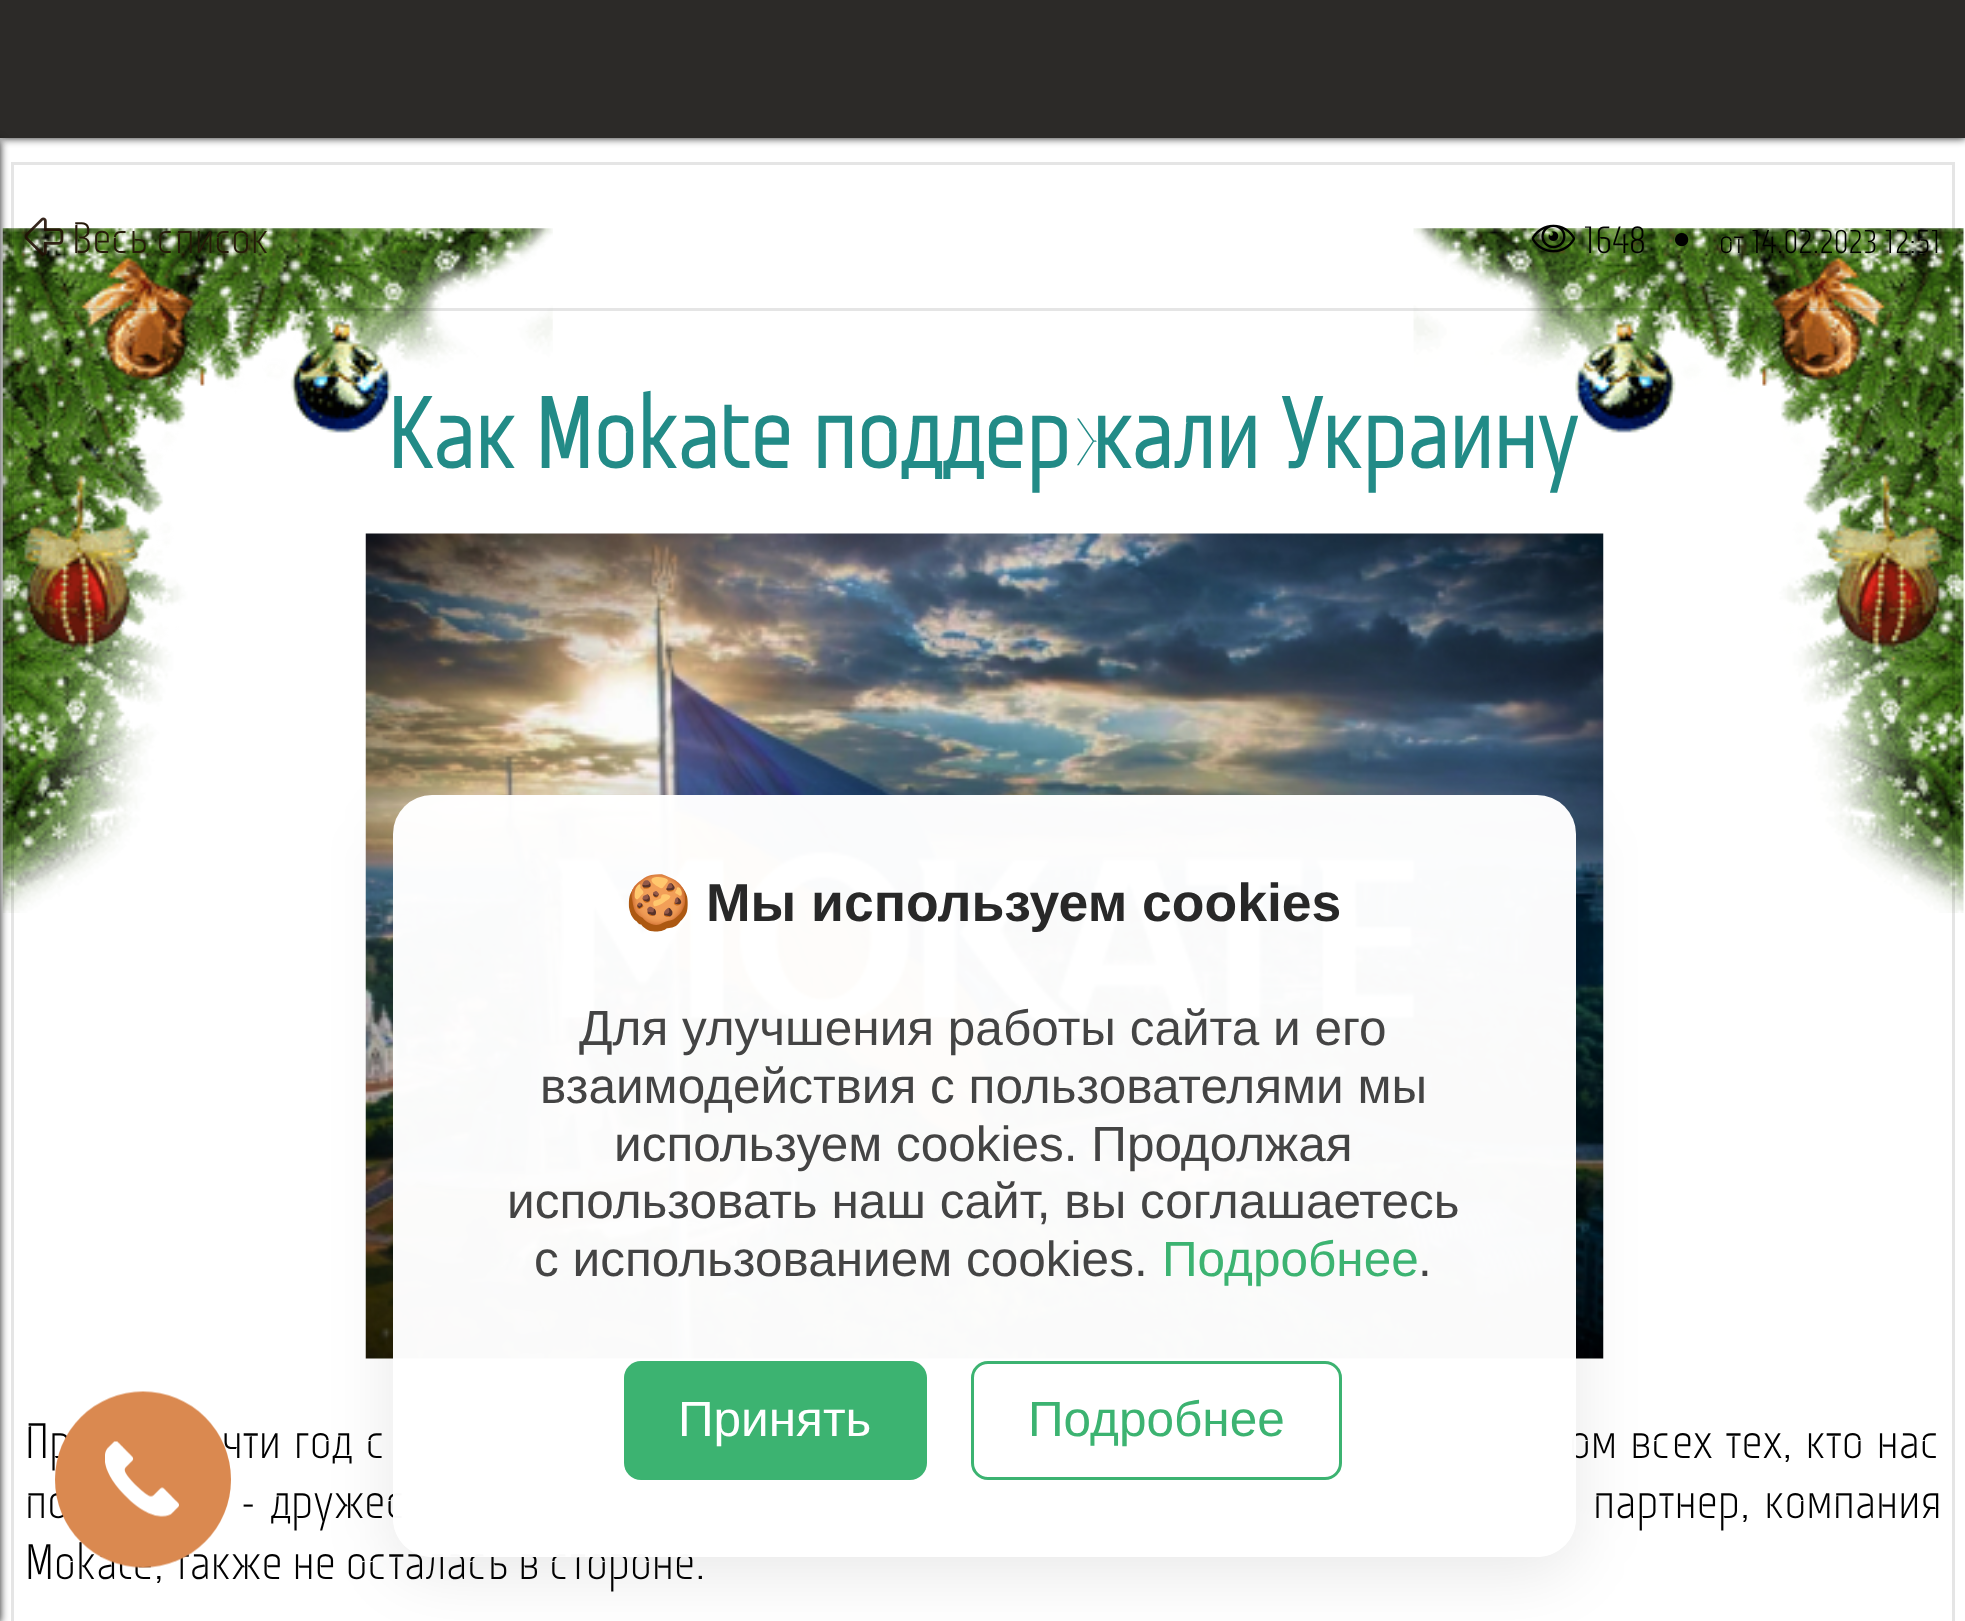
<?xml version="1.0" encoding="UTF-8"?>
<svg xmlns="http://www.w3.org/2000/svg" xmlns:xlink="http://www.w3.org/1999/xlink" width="1965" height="1621">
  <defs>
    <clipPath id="clip1"><path d="M 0 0 h 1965 v 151 h -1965 z m 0 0 h 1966 v 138 h -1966 z" clip-rule="evenodd" /></clipPath>
    <clipPath id="clip2"><path d="M 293 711 h 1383 v 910 h -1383 z m 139 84 h 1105 c 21.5 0 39 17.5 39 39 v 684 c 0 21.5 -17.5 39 -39 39 h -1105 c -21.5 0 -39 -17.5 -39 -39 v -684 c 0 -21.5 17.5 -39 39 -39 z" clip-rule="evenodd" /></clipPath>
  </defs>
  <rect width="100%" height="100%" fill="#ffffff" />
  <g clip-path="url(#clip1)">
    <rect width="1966" height="138" fill="#000000" fill-opacity="0.9" filter="blur(4px)" />
  </g>
  <rect width="1965" height="138" fill="#151311" fill-opacity="0.9" />
  <image x="2" y="228" width="551" height="685" xlink:href="image5.png" />
  <image x="1413" y="228" width="551" height="685" xlink:href="image6.png" />
  <rect x="12.5" y="163.5" width="1941" height="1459" fill="none" stroke="#000000" stroke-opacity="0.1" stroke-width="3" />
  <rect x="-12" y="140" width="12" height="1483" fill="#000000" fill-opacity="0.9" filter="blur(4px)" />
  <rect x="25" y="308" width="1917" height="3" fill="#000000" fill-opacity="0.1" />
  <image x="24" y="217" width="40" height="39" xlink:href="image1.png" />
  <image x="1531" y="224" width="44" height="29" xlink:href="image2.png" />
  <image x="1675" y="233" width="14" height="14" xlink:href="image3.png" />
  <image x="365" y="533" width="1239" height="826" xlink:href="image4.png" />
  <g clip-path="url(#clip2)">
    <rect x="393" y="811" width="1183" height="762" rx="39" fill="#000000" fill-opacity="0.09" filter="blur(33px)" />
  </g>
  <text x="72" y="253" style="font-family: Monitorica; font-size: 44px; font-weight: 300; fill: #261a0a">Весь список</text>
  <text x="1583" y="253" style="font-family: Monitorica; font-size: 38px; font-weight: 300; fill: #000000">1648</text>
  <text x="1719" y="253" style="font-family: Monitorica; font-size: 33px; font-weight: 300; fill: #000000">от 14.02.2023 12:51</text>
  <text x="387" y="468" style="font-family: Monitorica; font-size: 99px; font-weight: bold; fill: #228b87">Как Mokate поддержали Украину</text>
  <text x="25" y="1458" word-spacing="3" style="font-family: Monitorica; font-size: 49.5px; font-weight: 300; fill: #000000">Пр</text>
  <text x="222" y="1458" word-spacing="3" style="font-family: Monitorica; font-size: 49.5px; font-weight: 300; fill: #000000">чти год с</text>
  <text x="1569" y="1458" word-spacing="3" style="font-family: Monitorica; font-size: 49.5px; font-weight: 300; fill: #000000">ом всех тех, кто нас</text>
  <text x="25" y="1518" word-spacing="4" style="font-family: Monitorica; font-size: 49.5px; font-weight: 300; fill: #000000">по</text>
  <text x="240" y="1518" word-spacing="4" style="font-family: Monitorica; font-size: 49.5px; font-weight: 300; fill: #000000">- дружес</text>
  <text x="1593" y="1518" word-spacing="4" style="font-family: Monitorica; font-size: 49.5px; font-weight: 300; fill: #000000">партнер, компания</text>
  <text x="25" y="1579" style="font-family: Monitorica; font-size: 49.5px; font-weight: 300; fill: #000000">Mokate, также не осталась в стороне.</text>
  <rect x="393" y="795" width="1183" height="762" rx="39" fill="#ffffff" fill-opacity="0.98" />
  <text x="625" y="921" style="font-family: Noto Color Emoji; font-size: 53.5px; font-weight: bold; fill: #282828">🍪</text>
  <text x="706" y="921" style="font-family: Liberation Sans; font-size: 53.5px; font-weight: bold; fill: #282828">Мы используем cookies</text>
  <text x="579" y="1045" style="font-family: Liberation Sans; font-size: 49.5px; fill: #444444">Для улучшения работы сайта и его</text>
  <text x="540" y="1103" style="font-family: Liberation Sans; font-size: 49.5px; fill: #444444">взаимодействия с пользователями мы</text>
  <text x="614" y="1161" style="font-family: Liberation Sans; font-size: 49.5px; fill: #444444">используем cookies. Продолжая</text>
  <text x="507" y="1218" style="font-family: Liberation Sans; font-size: 49.5px; fill: #444444">использовать наш сайт, вы соглашаетесь</text>
  <text x="534" y="1276" style="font-family: Liberation Sans; font-size: 49.5px; fill: #444444">с использованием cookies.</text>
  <text x="1162" y="1276" style="font-family: Liberation Sans; font-size: 49.5px; fill: #3cb371">Подробнее</text>
  <text x="1418" y="1276" style="font-family: Liberation Sans; font-size: 49.5px; fill: #444444">.</text>
  <rect x="624" y="1361" width="303" height="119" rx="17" fill="#3cb371" />
  <text x="678" y="1436" style="font-family: Liberation Sans; font-size: 49.5px; fill: #ffffff">Принять</text>
  <rect x="972.5" y="1362.5" width="368" height="116" rx="15.5" fill="none" stroke="#3cb371" stroke-width="3" />
  <text x="1028" y="1436" style="font-family: Liberation Sans; font-size: 49.5px; fill: #3cb371">Подробнее</text>
  <image x="55" y="1391" width="176" height="177" xlink:href="image7.png" />
</svg>
